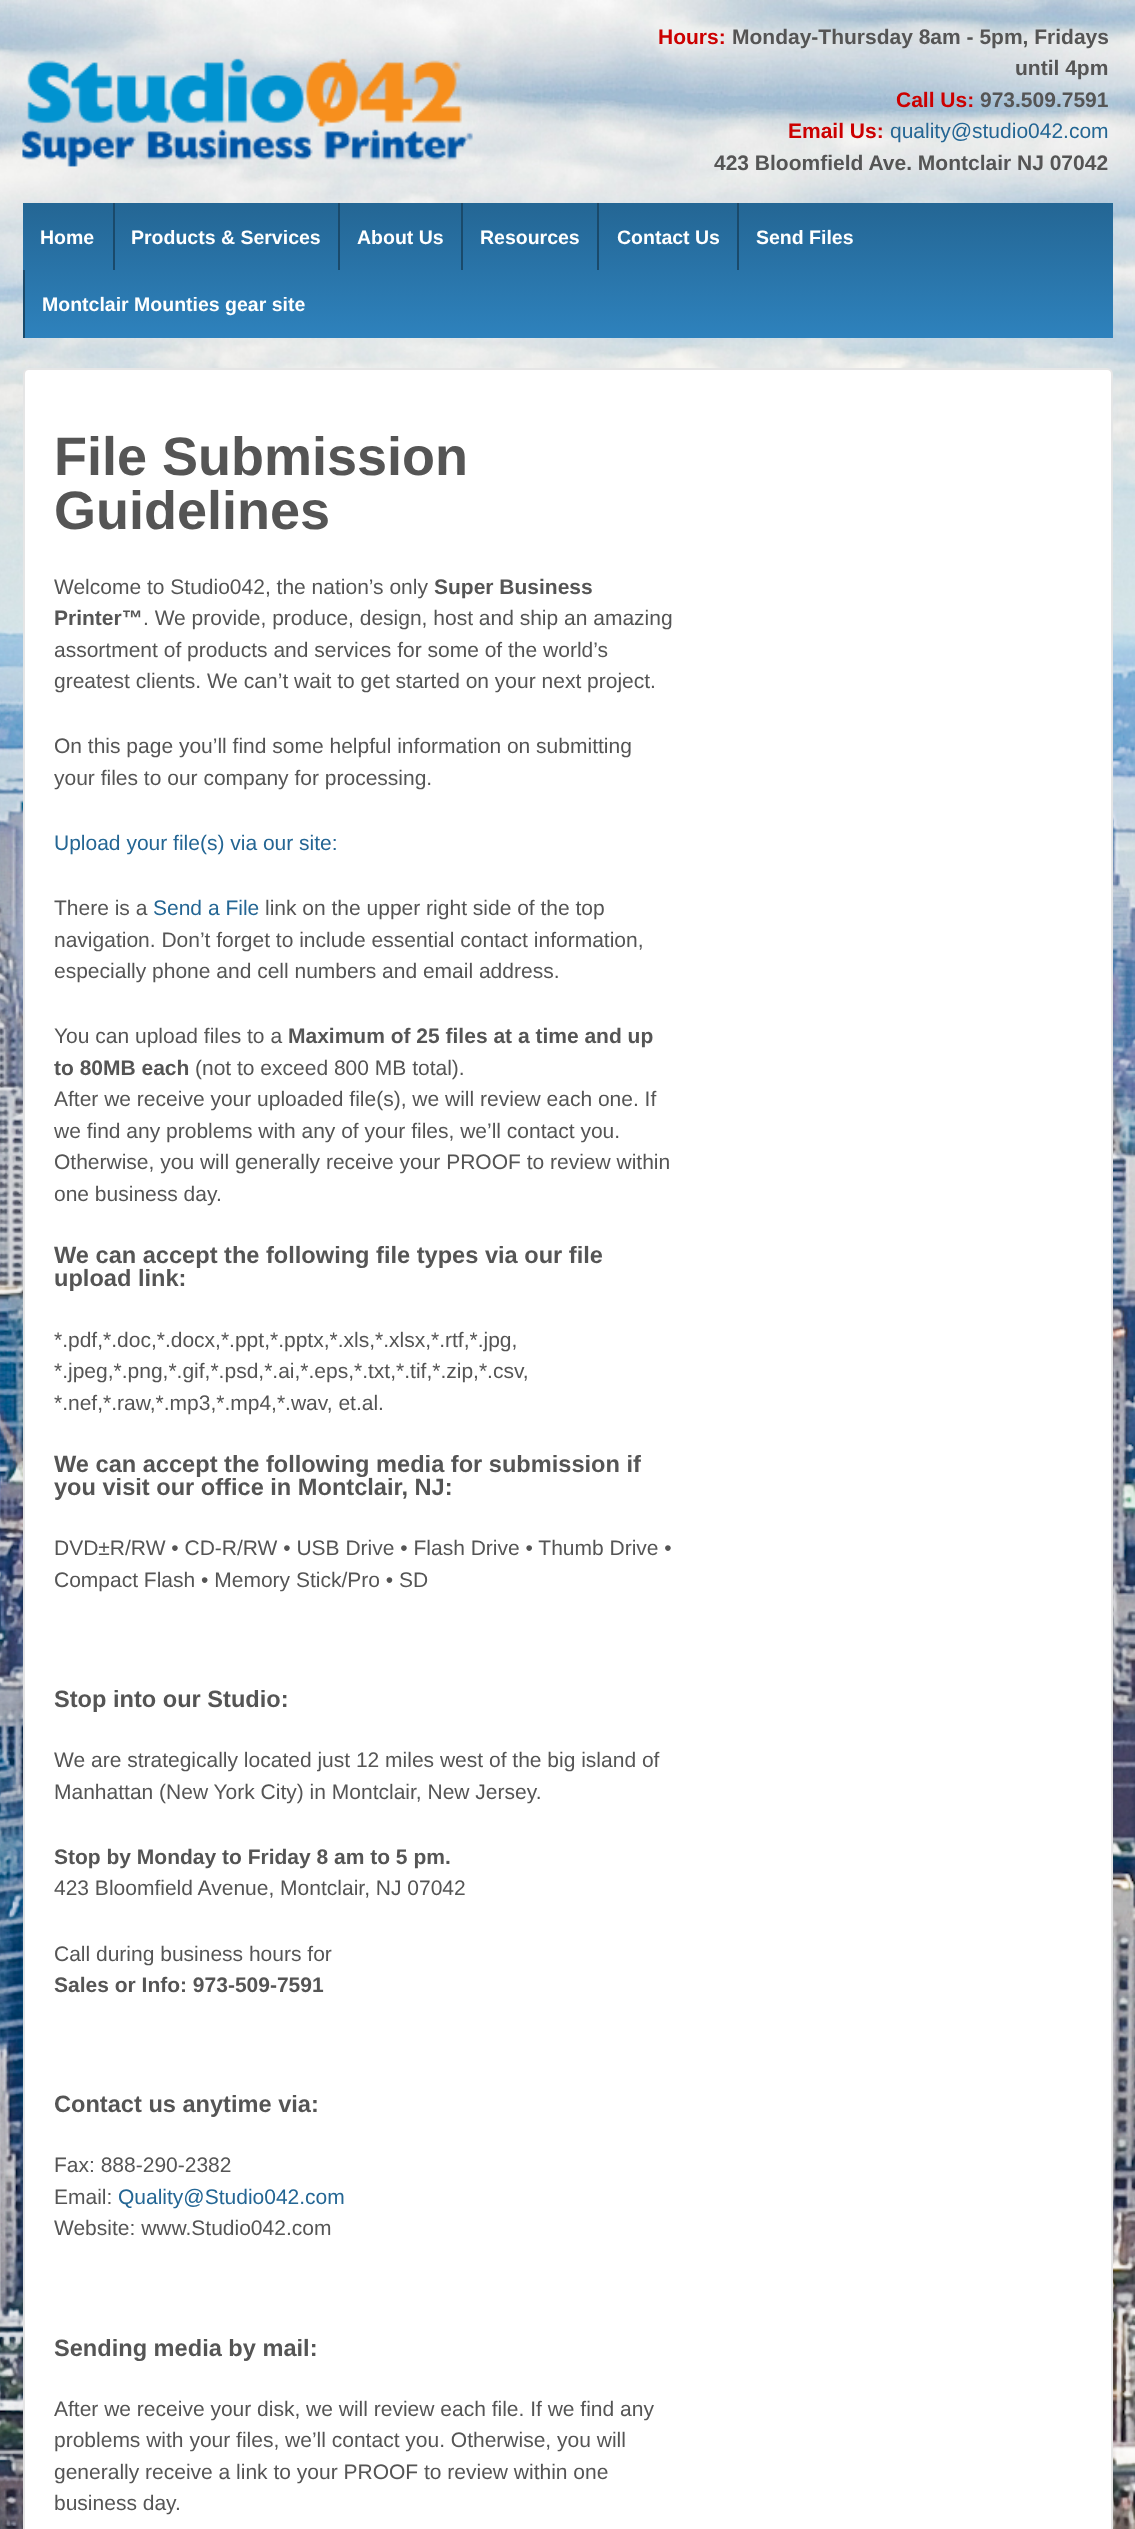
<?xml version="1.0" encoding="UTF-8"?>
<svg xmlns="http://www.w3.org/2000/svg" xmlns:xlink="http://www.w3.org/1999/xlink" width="1135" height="2529">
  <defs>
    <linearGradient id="g1" gradientUnits="userSpaceOnUse" x1="568" y1="338" x2="568" y2="203"><stop offset="0" stop-color="#2e82bd" /><stop offset="1" stop-color="#246694" /></linearGradient>
  </defs>
  <rect width="100%" height="100%" fill="#ffffff" />
  <image x="0" y="0" width="1135" height="2529" xlink:href="image1.png" />
  <image x="22" y="58" width="451" height="109" xlink:href="image2.png" />
  <rect x="23" y="203" width="1090" height="135" fill="url(#g1)" />
  <rect x="113" y="203" width="2" height="67" fill="#1a4a6b" />
  <rect x="338" y="203" width="2" height="67" fill="#1a4a6b" />
  <rect x="461" y="203" width="2" height="67" fill="#1a4a6b" />
  <rect x="597" y="203" width="2" height="67" fill="#1a4a6b" />
  <rect x="737" y="203" width="2" height="67" fill="#1a4a6b" />
  <rect x="23" y="270" width="2" height="68" fill="#1a4a6b" />
  <rect x="24" y="369" width="1088" height="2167" rx="5" fill="#ffffff" stroke="#e5e5e5" stroke-width="2" />
  <text x="658" y="44" style="font-family: Liberation Sans; font-size: 21px; font-weight: bold; fill: #cc0000">Hours:</text>
  <text x="732" y="44" style="font-family: Liberation Sans; font-size: 21px; font-weight: bold; fill: #555555">Monday-Thursday 8am - 5pm, Fridays</text>
  <text x="1015" y="75" style="font-family: Liberation Sans; font-size: 21px; font-weight: bold; fill: #555555">until 4pm</text>
  <text x="896" y="107" style="font-family: Liberation Sans; font-size: 21px; font-weight: bold; fill: #cc0000">Call Us:</text>
  <text x="980" y="107" style="font-family: Liberation Sans; font-size: 21px; font-weight: bold; fill: #555555">973.509.7591</text>
  <text x="788" y="138" style="font-family: Liberation Sans; font-size: 21px; font-weight: bold; fill: #cc0000">Email Us:</text>
  <text x="890" y="138" style="font-family: Liberation Sans; font-size: 21px; fill: #246694">quality@studio042.com</text>
  <text x="714" y="170" style="font-family: Liberation Sans; font-size: 21px; font-weight: bold; fill: #555555">423 Bloomfield Ave. Montclair NJ 07042</text>
  <text x="40" y="244" style="font-family: Liberation Sans; font-size: 19.5px; font-weight: bold; fill: #ffffff">Home</text>
  <text x="131" y="244" style="font-family: Liberation Sans; font-size: 19.5px; font-weight: bold; fill: #ffffff">Products &amp; Services</text>
  <text x="357" y="244" style="font-family: Liberation Sans; font-size: 19.5px; font-weight: bold; fill: #ffffff">About Us</text>
  <text x="480" y="244" style="font-family: Liberation Sans; font-size: 19.5px; font-weight: bold; fill: #ffffff">Resources</text>
  <text x="617" y="244" style="font-family: Liberation Sans; font-size: 19.5px; font-weight: bold; fill: #ffffff">Contact Us</text>
  <text x="756" y="244" style="font-family: Liberation Sans; font-size: 19.5px; font-weight: bold; fill: #ffffff">Send Files</text>
  <text x="42" y="311" style="font-family: Liberation Sans; font-size: 19.5px; font-weight: bold; fill: #ffffff">Montclair Mounties gear site</text>
  <text x="54" y="475" style="font-family: Liberation Sans; font-size: 54px; font-weight: bold; fill: #555555">File Submission</text>
  <text x="54" y="529" style="font-family: Liberation Sans; font-size: 54px; font-weight: bold; fill: #555555">Guidelines</text>
  <text x="54" y="594" style="font-family: Liberation Sans; font-size: 21px; fill: #555555">Welcome to Studio042, the nation’s only</text>
  <text x="434" y="594" style="font-family: Liberation Sans; font-size: 21px; font-weight: bold; fill: #555555">Super Business</text>
  <text x="54" y="625" style="font-family: Liberation Sans; font-size: 21px; font-weight: bold; fill: #555555">Printer™</text>
  <text x="143" y="625" style="font-family: Liberation Sans; font-size: 21px; fill: #555555">. We provide, produce, design, host and ship an amazing</text>
  <text x="54" y="657" style="font-family: Liberation Sans; font-size: 21px; fill: #555555">assortment of products and services for some of the world’s</text>
  <text x="54" y="688" style="font-family: Liberation Sans; font-size: 21px; fill: #555555">greatest clients. We can’t wait to get started on your next project.</text>
  <text x="54" y="753" style="font-family: Liberation Sans; font-size: 21px; fill: #555555">On this page you’ll find some helpful information on submitting</text>
  <text x="54" y="785" style="font-family: Liberation Sans; font-size: 21px; fill: #555555">your files to our company for processing.</text>
  <text x="54" y="850" style="font-family: Liberation Sans; font-size: 21px; fill: #246694">Upload your file(s) via our site:</text>
  <text x="54" y="915" style="font-family: Liberation Sans; font-size: 21px; fill: #555555">There is a</text>
  <text x="153" y="915" style="font-family: Liberation Sans; font-size: 21px; fill: #246694">Send a File</text>
  <text x="265" y="915" style="font-family: Liberation Sans; font-size: 21px; fill: #555555">link on the upper right side of the top</text>
  <text x="54" y="947" style="font-family: Liberation Sans; font-size: 21px; fill: #555555">navigation. Don’t forget to include essential contact information,</text>
  <text x="54" y="978" style="font-family: Liberation Sans; font-size: 21px; fill: #555555">especially phone and cell numbers and email address.</text>
  <text x="54" y="1043" style="font-family: Liberation Sans; font-size: 21px; fill: #555555">You can upload files to a</text>
  <text x="288" y="1043" style="font-family: Liberation Sans; font-size: 21px; font-weight: bold; fill: #555555">Maximum of 25 files at a time and up</text>
  <text x="54" y="1075" style="font-family: Liberation Sans; font-size: 21px; font-weight: bold; fill: #555555">to 80MB each</text>
  <text x="195" y="1075" style="font-family: Liberation Sans; font-size: 21px; fill: #555555">(not to exceed 800 MB total).</text>
  <text x="54" y="1106" style="font-family: Liberation Sans; font-size: 21px; fill: #555555">After we receive your uploaded file(s), we will review each one. If</text>
  <text x="54" y="1138" style="font-family: Liberation Sans; font-size: 21px; fill: #555555">we find any problems with any of your files, we’ll contact you.</text>
  <text x="54" y="1169" style="font-family: Liberation Sans; font-size: 21px; fill: #555555">Otherwise, you will generally receive your PROOF to review within</text>
  <text x="54" y="1201" style="font-family: Liberation Sans; font-size: 21px; fill: #555555">one business day.</text>
  <text x="54" y="1263" style="font-family: Liberation Sans; font-size: 23.6px; font-weight: bold; fill: #555555">We can accept the following file types via our file</text>
  <text x="54" y="1286" style="font-family: Liberation Sans; font-size: 23.6px; font-weight: bold; fill: #555555">upload link:</text>
  <text x="54" y="1347" style="font-family: Liberation Sans; font-size: 21px; fill: #555555">*.pdf,*.doc,*.docx,*.ppt,*.pptx,*.xls,*.xlsx,*.rtf,*.jpg,</text>
  <text x="54" y="1378" style="font-family: Liberation Sans; font-size: 21px; fill: #555555">*.jpeg,*.png,*.gif,*.psd,*.ai,*.eps,*.txt,*.tif,*.zip,*.csv,</text>
  <text x="54" y="1410" style="font-family: Liberation Sans; font-size: 21px; fill: #555555">*.nef,*.raw,*.mp3,*.mp4,*.wav, et.al.</text>
  <text x="54" y="1472" style="font-family: Liberation Sans; font-size: 23.6px; font-weight: bold; fill: #555555">We can accept the following media for submission if</text>
  <text x="54" y="1495" style="font-family: Liberation Sans; font-size: 23.6px; font-weight: bold; fill: #555555">you visit our office in Montclair, NJ:</text>
  <text x="54" y="1555" style="font-family: Liberation Sans; font-size: 21px; fill: #555555">DVD±R/RW • CD-R/RW • USB Drive • Flash Drive • Thumb Drive •</text>
  <text x="54" y="1587" style="font-family: Liberation Sans; font-size: 21px; fill: #555555">Compact Flash • Memory Stick/Pro • SD</text>
  <text x="54" y="1707" style="font-family: Liberation Sans; font-size: 23.6px; font-weight: bold; fill: #555555">Stop into our Studio:</text>
  <text x="54" y="1767" style="font-family: Liberation Sans; font-size: 21px; fill: #555555">We are strategically located just 12 miles west of the big island of</text>
  <text x="54" y="1799" style="font-family: Liberation Sans; font-size: 21px; fill: #555555">Manhattan (New York City) in Montclair, New Jersey.</text>
  <text x="54" y="1864" style="font-family: Liberation Sans; font-size: 21px; font-weight: bold; fill: #555555">Stop by Monday to Friday 8 am to 5 pm.</text>
  <text x="54" y="1895" style="font-family: Liberation Sans; font-size: 21px; fill: #555555">423 Bloomfield Avenue, Montclair, NJ 07042</text>
  <text x="54" y="1961" style="font-family: Liberation Sans; font-size: 21px; fill: #555555">Call during business hours for</text>
  <text x="54" y="1992" style="font-family: Liberation Sans; font-size: 21px; font-weight: bold; fill: #555555">Sales or Info: 973-509-7591</text>
  <text x="54" y="2112" style="font-family: Liberation Sans; font-size: 23.6px; font-weight: bold; fill: #555555">Contact us anytime via:</text>
  <text x="54" y="2172" style="font-family: Liberation Sans; font-size: 21px; fill: #555555">Fax: 888-290-2382</text>
  <text x="54" y="2204" style="font-family: Liberation Sans; font-size: 21px; fill: #555555">Email:</text>
  <text x="118" y="2204" style="font-family: Liberation Sans; font-size: 21px; fill: #246694">Quality@Studio042.com</text>
  <text x="54" y="2235" style="font-family: Liberation Sans; font-size: 21px; fill: #555555">Website: www.Studio042.com</text>
  <text x="54" y="2356" style="font-family: Liberation Sans; font-size: 23.6px; font-weight: bold; fill: #555555">Sending media by mail:</text>
  <text x="54" y="2416" style="font-family: Liberation Sans; font-size: 21px; fill: #555555">After we receive your disk, we will review each file. If we find any</text>
  <text x="54" y="2447" style="font-family: Liberation Sans; font-size: 21px; fill: #555555">problems with your files, we’ll contact you. Otherwise, you will</text>
  <text x="54" y="2479" style="font-family: Liberation Sans; font-size: 21px; fill: #555555">generally receive a link to your PROOF to review within one</text>
  <text x="54" y="2510" style="font-family: Liberation Sans; font-size: 21px; fill: #555555">business day.</text>
</svg>
